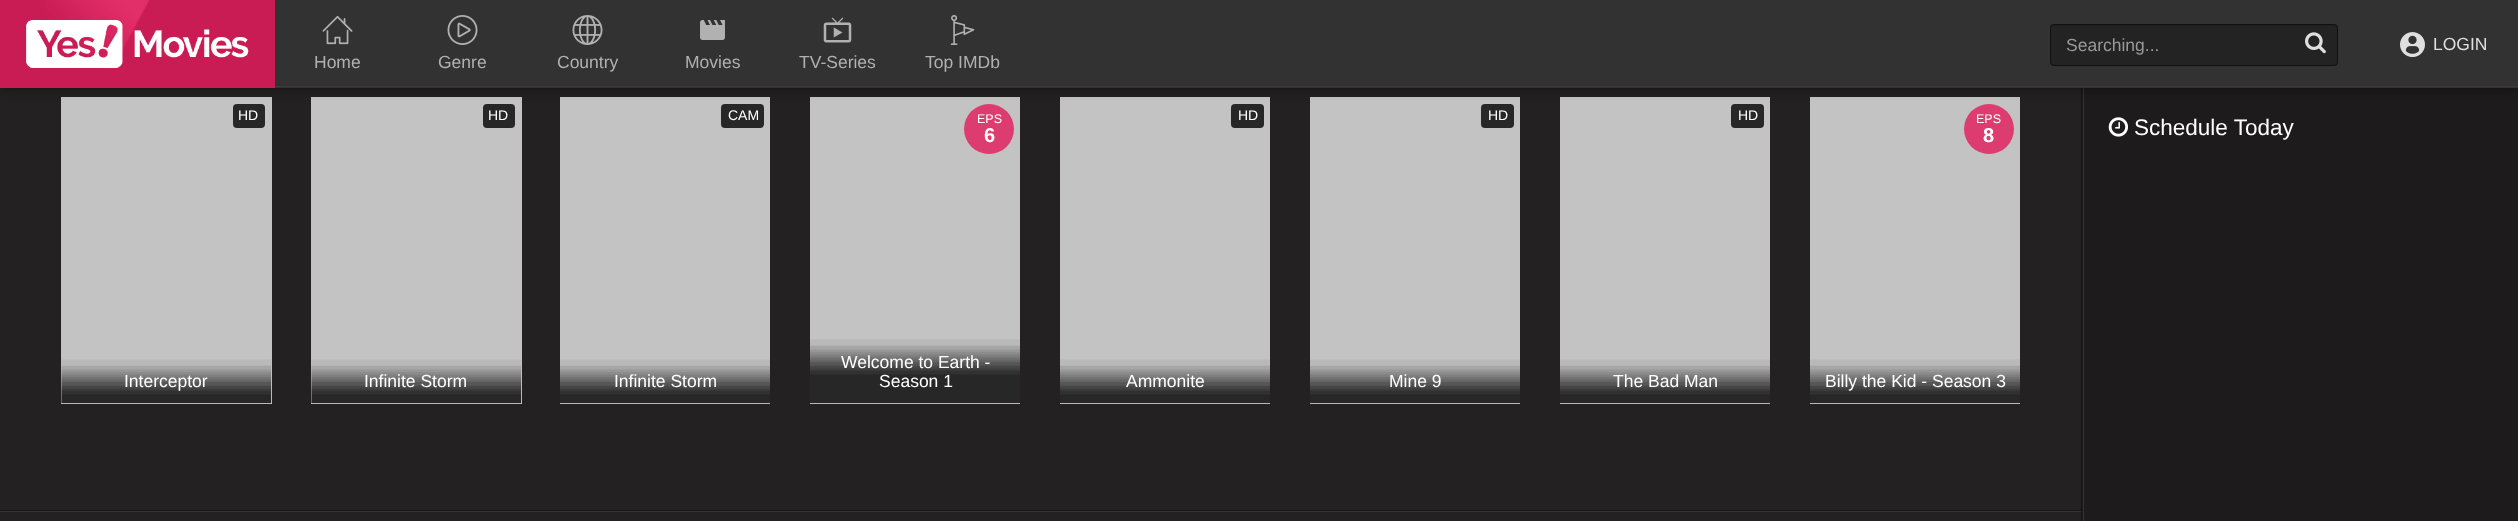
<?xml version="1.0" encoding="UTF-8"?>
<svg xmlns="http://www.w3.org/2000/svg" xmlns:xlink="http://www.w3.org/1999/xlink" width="2518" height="521">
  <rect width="100%" height="100%" fill="#232122" />
  <rect x="61" y="97" width="211" height="307" fill="#c3c3c3" />
  <rect x="233" y="104" width="32" height="24" rx="4" fill="#272727" />
  <rect x="311" y="97" width="211" height="307" fill="#c3c3c3" />
  <rect x="483" y="104" width="32" height="24" rx="4" fill="#272727" />
  <rect x="560" y="97" width="210" height="307" fill="#c3c3c3" />
  <rect x="721" y="104" width="43" height="24" rx="4" fill="#272727" />
  <rect x="810" y="97" width="210" height="307" fill="#c3c3c3" />
  <circle cx="989" cy="129" r="25" fill="#dd3c71" />
  <rect x="1060" y="97" width="210" height="307" fill="#c3c3c3" />
  <rect x="1231" y="104" width="33" height="24" rx="4" fill="#272727" />
  <rect x="1310" y="97" width="210" height="307" fill="#c3c3c3" />
  <rect x="1481" y="104" width="33" height="24" rx="4" fill="#272727" />
  <rect x="1560" y="97" width="210" height="307" fill="#c3c3c3" />
  <rect x="1731" y="104" width="33" height="24" rx="4" fill="#272727" />
  <rect x="1810" y="97" width="210" height="307" fill="#c3c3c3" />
  <circle cx="1989" cy="129" r="25" fill="#dd3c71" />
  <rect x="2082" y="88" width="436" height="433" fill="#1d1b1c" />
  <rect x="2081" y="88" width="1" height="433" fill="#151515" />
  <rect x="2083" y="88" width="1" height="433" fill="#333333" />
  <rect width="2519" height="88" fill="#000000" fill-opacity="0.5" filter="blur(6px)" />
  <rect x="275" width="2243" height="88" fill="#323232" />
  <rect width="275" height="88" fill="#c91c55" />
  <image x="45" y="0" width="104" height="69" xlink:href="image1.png" />
  <image x="26" y="20" width="223" height="48" xlink:href="image2.png" />
  <rect x="2050" y="24" width="288" height="42" rx="4" fill="#232323" />
  <path d="M 2054 26 h 280 l 2 1 v 2 c 0 -2 0 -4 -2 -4 h -280 c -3 0 -3 2 -3 4 c 0 -2 1 -3 3 -3 z" fill="#202020" />
  <rect x="2050.5" y="24.5" width="287" height="41" rx="3.5" fill="none" stroke="#111111" />
  <image x="2305" y="32" width="21" height="22" xlink:href="image3.png" />
  <image x="2400" y="32" width="25" height="26" xlink:href="image4.png" />
  <image x="322" y="15" width="31" height="30" xlink:href="image5.png" />
  <image x="447" y="15" width="31" height="30" xlink:href="image6.png" />
  <image x="572" y="15" width="31" height="30" xlink:href="image7.png" />
  <image x="700" y="20" width="25" height="20" xlink:href="image8.png" />
  <image x="823" y="17" width="29" height="26" xlink:href="image9.png" />
  <image x="950" y="15" width="25" height="30" xlink:href="image10.png" />
  <rect x="275" y="86" width="2243" height="1" fill="#3c3c3c" />
  <image x="61" y="359" width="211" height="45" xlink:href="image11.png" />
  <image x="311" y="359" width="211" height="45" xlink:href="image11.png" />
  <image x="560" y="359" width="210" height="45" xlink:href="image12.png" />
  <image x="810" y="339" width="210" height="65" xlink:href="image13.png" />
  <image x="1060" y="359" width="210" height="45" xlink:href="image12.png" />
  <image x="1310" y="359" width="210" height="45" xlink:href="image12.png" />
  <image x="1560" y="359" width="210" height="45" xlink:href="image12.png" />
  <image x="1810" y="359" width="210" height="45" xlink:href="image12.png" />
  <rect y="511" width="2081" height="1" fill="#333333" />
  <rect y="510" width="2081" height="1" fill="#161616" />
  <image x="2108" y="117" width="20" height="20" xlink:href="image14.png" />
  <text x="2066" y="51" style="font-family: Liberation Sans; font-size: 17.5px; fill: #999999">Searching...</text>
  <text x="2433" y="50" style="font-family: Liberation Sans; font-size: 17.5px; fill: #dfdfdf">LOGIN</text>
  <text x="314" y="68" style="font-family: Liberation Sans; font-size: 17.5px; fill: #b1b1b1">Home</text>
  <text x="438" y="68" style="font-family: Liberation Sans; font-size: 17.5px; fill: #b1b1b1">Genre</text>
  <text x="557" y="68" style="font-family: Liberation Sans; font-size: 17.5px; fill: #b1b1b1">Country</text>
  <text x="685" y="68" style="font-family: Liberation Sans; font-size: 17.5px; fill: #b1b1b1">Movies</text>
  <text x="799" y="68" style="font-family: Liberation Sans; font-size: 17.5px; fill: #b1b1b1">TV-Series</text>
  <text x="925" y="68" style="font-family: Liberation Sans; font-size: 17.5px; fill: #b1b1b1">Top IMDb</text>
  <text x="238" y="120" style="font-family: Liberation Sans; font-size: 14px; fill: #ffffff">HD</text>
  <text x="124" y="387" style="font-family: Liberation Sans; font-size: 17.5px; fill: #ffffff">Interceptor</text>
  <text x="488" y="120" style="font-family: Liberation Sans; font-size: 14px; fill: #ffffff">HD</text>
  <text x="364" y="387" style="font-family: Liberation Sans; font-size: 17.5px; fill: #ffffff">Infinite Storm</text>
  <text x="728" y="120" style="font-family: Liberation Sans; font-size: 14px; fill: #ffffff">CAM</text>
  <text x="614" y="387" style="font-family: Liberation Sans; font-size: 17.5px; fill: #ffffff">Infinite Storm</text>
  <text x="977" y="123" style="font-family: Liberation Sans; font-size: 12.5px; fill: #ffffff">EPS</text>
  <text x="984" y="142" style="font-family: Liberation Sans; font-size: 20px; font-weight: bold; fill: #ffffff">6</text>
  <text x="841" y="368" style="font-family: Liberation Sans; font-size: 17.5px; fill: #ffffff">Welcome to Earth -</text>
  <text x="879" y="387" style="font-family: Liberation Sans; font-size: 17.5px; fill: #ffffff">Season 1</text>
  <text x="1238" y="120" style="font-family: Liberation Sans; font-size: 14px; fill: #ffffff">HD</text>
  <text x="1126" y="387" style="font-family: Liberation Sans; font-size: 17.5px; fill: #ffffff">Ammonite</text>
  <text x="1488" y="120" style="font-family: Liberation Sans; font-size: 14px; fill: #ffffff">HD</text>
  <text x="1389" y="387" style="font-family: Liberation Sans; font-size: 17.5px; fill: #ffffff">Mine 9</text>
  <text x="1738" y="120" style="font-family: Liberation Sans; font-size: 14px; fill: #ffffff">HD</text>
  <text x="1613" y="387" style="font-family: Liberation Sans; font-size: 17.5px; fill: #ffffff">The Bad Man</text>
  <text x="1976" y="123" style="font-family: Liberation Sans; font-size: 12.5px; fill: #ffffff">EPS</text>
  <text x="1983" y="142" style="font-family: Liberation Sans; font-size: 20px; font-weight: bold; fill: #ffffff">8</text>
  <text x="1825" y="387" style="font-family: Liberation Sans; font-size: 17.5px; fill: #ffffff">Billy the Kid - Season 3</text>
  <text x="2134" y="135" style="font-family: Liberation Sans; font-size: 22.5px; fill: #ffffff">Schedule Today</text>
</svg>
